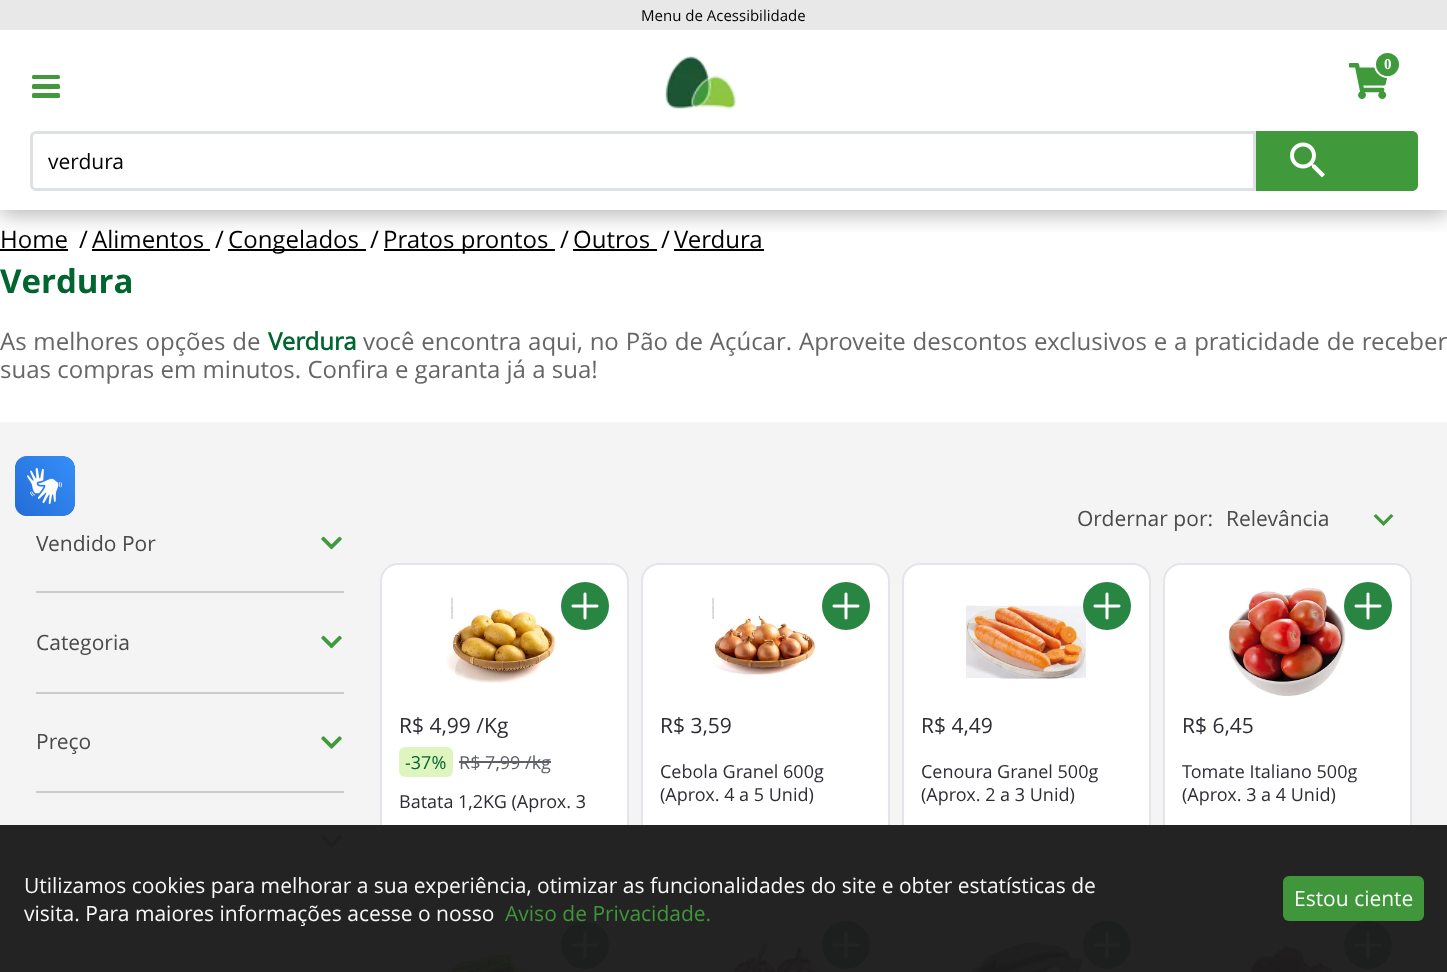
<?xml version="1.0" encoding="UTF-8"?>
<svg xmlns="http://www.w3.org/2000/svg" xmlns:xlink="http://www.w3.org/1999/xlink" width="1447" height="972">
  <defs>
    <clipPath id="clip1"><rect x="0" y="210" width="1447" height="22" /></clipPath>
  </defs>
  <rect width="100%" height="100%" fill="#ffffff" />
  <g clip-path="url(#clip1)">
    <rect y="35" width="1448" height="180" fill="#4a4a4a" fill-opacity="0.4" filter="blur(10.5px)" />
  </g>
  <rect width="1447" height="30" fill="#e8e8e8" />
  <image x="664" y="55" width="73" height="55" xlink:href="image1.png" />
  <image x="1349" y="63" width="39" height="36" xlink:href="image2.png" />
  <circle cx="1387.5" cy="64.5" r="12.5" fill="#409a3c" stroke="#ffffff" stroke-width="2" />
  <rect x="32" y="84" width="28" height="5" rx="1.5" fill="#409a3c" />
  <rect x="32" y="93" width="28" height="5" rx="1.5" fill="#409a3c" />
  <rect x="32" y="75" width="28" height="4" rx="1.5" fill="#409a3c" />
  <path d="M 36 132.5 h 1218.5 v 57 h -1218.5 c -2.5 0 -4.5 -2 -4.5 -4.5 v -48 c 0 -2.5 2 -4.5 4.5 -4.5 z" fill="none" stroke="#dee1e3" stroke-width="3" />
  <path d="M 1256 131 h 156 c 3.5 0 6 2.5 6 6 v 48 c 0 3.5 -2.5 6 -6 6 h -156 z" fill="#409a3c" />
  <image x="1290" y="142" width="35" height="36" xlink:href="image3.png" />
  <rect y="249" width="68" height="2" fill="#000000" />
  <rect x="92" y="249" width="118" height="2" fill="#000000" />
  <rect x="228" y="249" width="138" height="2" fill="#000000" />
  <rect x="384" y="249" width="171" height="2" fill="#000000" />
  <rect x="573" y="249" width="84" height="2" fill="#000000" />
  <rect x="674" y="249" width="90" height="2" fill="#000000" />
  <rect y="422" width="1447" height="550" fill="#f4f4f4" />
  <rect x="36" y="591" width="308" height="2" fill="#cbcbcb" />
  <image x="321" y="536" width="21" height="14" xlink:href="image4.png" />
  <rect x="36" y="692" width="308" height="2" fill="#cbcbcb" />
  <image x="321" y="635" width="21" height="14" xlink:href="image4.png" />
  <rect x="36" y="791" width="308" height="2" fill="#cbcbcb" />
  <image x="321" y="736" width="21" height="13" xlink:href="image5.png" />
  <image x="321" y="835" width="21" height="13" xlink:href="image5.png" />
  <path d="M 1376 514 l 7.5 7.5 l 7.5 -7.5 l 2.5 2 l -10 10 l -10 -10 z" fill="#409a3c" />
  <rect x="381" y="564" width="247" height="325" rx="17" fill="#ffffff" stroke="#e4e5eb" stroke-width="2" />
  <image x="446" y="597" width="110" height="86" xlink:href="image6.png" />
  <circle cx="585" cy="606" r="24" fill="#288542" />
  <image x="571" y="592" width="28" height="28" xlink:href="image7.png" />
  <rect x="399" y="747" width="54" height="30" rx="6" fill="#def5bf" />
  <rect x="459" y="761" width="92" height="2" fill="#5e6066" />
  <rect x="642" y="564" width="247" height="325" rx="17" fill="#ffffff" stroke="#e4e5eb" stroke-width="2" />
  <image x="712" y="597" width="104" height="79" xlink:href="image8.png" />
  <circle cx="846" cy="606" r="24" fill="#288542" />
  <image x="832" y="592" width="28" height="28" xlink:href="image7.png" />
  <rect x="903" y="564" width="247" height="325" rx="17" fill="#ffffff" stroke="#e4e5eb" stroke-width="2" />
  <image x="966" y="605" width="120" height="74" xlink:href="image9.png" />
  <circle cx="1107" cy="606" r="24" fill="#288542" />
  <image x="1093" y="592" width="28" height="28" xlink:href="image7.png" />
  <rect x="1164" y="564" width="247" height="325" rx="17" fill="#ffffff" stroke="#e4e5eb" stroke-width="2" />
  <image x="1228" y="587" width="119" height="110" xlink:href="image10.png" />
  <circle cx="1368" cy="606" r="24" fill="#288542" />
  <image x="1354" y="592" width="28" height="28" xlink:href="image7.png" />
  <rect x="381" y="903" width="247" height="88" rx="17" fill="#ffffff" stroke="#e4e5eb" stroke-width="2" />
  <image x="449" y="953" width="81" height="19" xlink:href="image11.png" />
  <circle cx="585" cy="945" r="24" fill="#288542" />
  <image x="571" y="931" width="28" height="28" xlink:href="image7.png" />
  <rect x="642" y="903" width="247" height="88" rx="17" fill="#ffffff" stroke="#e4e5eb" stroke-width="2" />
  <image x="734" y="940" width="87" height="32" xlink:href="image12.png" />
  <circle cx="846" cy="945" r="24" fill="#288542" />
  <image x="832" y="931" width="28" height="28" xlink:href="image7.png" />
  <rect x="903" y="903" width="247" height="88" rx="17" fill="#ffffff" stroke="#e4e5eb" stroke-width="2" />
  <image x="968" y="926" width="116" height="46" xlink:href="image13.png" />
  <circle cx="1107" cy="945" r="24" fill="#288542" />
  <image x="1093" y="931" width="28" height="28" xlink:href="image7.png" />
  <rect x="1164" y="903" width="247" height="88" rx="17" fill="#ffffff" stroke="#e4e5eb" stroke-width="2" />
  <image x="1249" y="945" width="84" height="27" xlink:href="image14.png" />
  <circle cx="1368" cy="945" r="24" fill="#288542" />
  <image x="1354" y="931" width="28" height="28" xlink:href="image7.png" />
  <image x="15" y="456" width="60" height="60" xlink:href="image15.png" />
  <image x="15" y="456" width="60" height="60" xlink:href="image16.png" />
  <rect y="825" width="1447" height="147" fill="#1c1c1c" fill-opacity="0.97" />
  <rect x="1283" y="876" width="141" height="45" rx="6" fill="#3f963b" />
  <text x="641" y="21" style="font-family: Open Sans; font-size: 15px; fill: #000000">Menu de Acessibilidade</text>
  <text x="1384" y="69" style="font-family: Liberation Serif; font-size: 15px; font-weight: bold; fill: #ffffff">0</text>
  <text x="48" y="169" style="font-family: Open Sans; font-size: 21px; fill: #000000">verdura</text>
  <text x="0" y="248" style="font-family: Open Sans; font-size: 24px; fill: #000000">Home</text>
  <text x="79" y="248" style="font-family: Open Sans; font-size: 24px; fill: #000000">/</text>
  <text x="92" y="248" style="font-family: Open Sans; font-size: 24px; fill: #000000">Alimentos</text>
  <text x="215" y="248" style="font-family: Open Sans; font-size: 24px; fill: #000000">/</text>
  <text x="228" y="248" style="font-family: Open Sans; font-size: 24px; fill: #000000">Congelados</text>
  <text x="370" y="248" style="font-family: Open Sans; font-size: 24px; fill: #000000">/</text>
  <text x="383" y="248" style="font-family: Open Sans; font-size: 24px; fill: #000000">Pratos prontos</text>
  <text x="560" y="248" style="font-family: Open Sans; font-size: 24px; fill: #000000">/</text>
  <text x="573" y="248" style="font-family: Open Sans; font-size: 24px; fill: #000000">Outros</text>
  <text x="661" y="248" style="font-family: Open Sans; font-size: 24px; fill: #000000">/</text>
  <text x="674" y="248" style="font-family: Open Sans; font-size: 24px; fill: #000000">Verdura</text>
  <text x="0" y="293" style="font-family: Open Sans; font-size: 33px; font-weight: bold; fill: #00652e">Verdura</text>
  <text x="0" y="350" word-spacing="0.5" style="font-family: Open Sans; font-size: 24px; fill: #666666">As melhores opções de</text>
  <text x="268" y="350" style="font-family: 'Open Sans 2'; font-size: 24px; font-weight: bold; fill: #00652e">Verdura</text>
  <text x="363" y="350" word-spacing="0.6" style="font-family: Open Sans; font-size: 24px; fill: #666666">você encontra aqui, no Pão de Açúcar. Aproveite descontos exclusivos e a praticidade de receber</text>
  <text x="0" y="378" style="font-family: Open Sans; font-size: 24px; fill: #666666">suas compras em minutos. Confira e garanta já a sua!</text>
  <text x="36" y="551" style="font-family: Open Sans; font-size: 21px; fill: #4a4a4a">Vendido Por</text>
  <text x="36" y="650" style="font-family: Open Sans; font-size: 21px; fill: #4a4a4a">Categoria</text>
  <text x="36" y="749" style="font-family: Open Sans; font-size: 21px; fill: #4a4a4a">Preço</text>
  <text x="1077" y="526" style="font-family: Open Sans; font-size: 21px; fill: #4a4a4a">Ordernar por:</text>
  <text x="1226" y="526" style="font-family: Open Sans; font-size: 21px; fill: #4a4a4a">Relevância</text>
  <text x="399" y="733" style="font-family: 'Open Sans 2'; font-size: 21px; fill: #2d2e33">R$ 4,99 /Kg</text>
  <text x="405" y="769" style="font-family: 'Open Sans 2'; font-size: 18px; fill: #00652e">-37%</text>
  <text x="459" y="769" style="font-family: Open Sans; font-size: 18px; fill: #5e6066">R$ 7,99 /kg</text>
  <text x="399" y="808" style="font-family: Open Sans; font-size: 18px; fill: #2d2e33">Batata 1,2KG (Aprox. 3</text>
  <text x="660" y="733" style="font-family: 'Open Sans 2'; font-size: 21px; fill: #2d2e33">R$ 3,59</text>
  <text x="660" y="778" style="font-family: Open Sans; font-size: 18px; fill: #2d2e33">Cebola Granel 600g</text>
  <text x="660" y="801" style="font-family: Open Sans; font-size: 18px; fill: #2d2e33">(Aprox. 4 a 5 Unid)</text>
  <text x="921" y="733" style="font-family: 'Open Sans 2'; font-size: 21px; fill: #2d2e33">R$ 4,49</text>
  <text x="921" y="778" style="font-family: Open Sans; font-size: 18px; fill: #2d2e33">Cenoura Granel 500g</text>
  <text x="921" y="801" style="font-family: Open Sans; font-size: 18px; fill: #2d2e33">(Aprox. 2 a 3 Unid)</text>
  <text x="1182" y="733" style="font-family: 'Open Sans 2'; font-size: 21px; fill: #2d2e33">R$ 6,45</text>
  <text x="1182" y="778" style="font-family: Open Sans; font-size: 18px; fill: #2d2e33">Tomate Italiano 500g</text>
  <text x="1182" y="801" style="font-family: Open Sans; font-size: 18px; fill: #2d2e33">(Aprox. 3 a 4 Unid)</text>
  <text x="24" y="893" style="font-family: Open Sans; font-size: 21px; fill: #f8f8f8">Utilizamos cookies para melhorar a sua experiência, otimizar as funcionalidades do site e obter estatísticas de</text>
  <text x="24" y="921" style="font-family: Open Sans; font-size: 21px; fill: #f8f8f8">visita. Para maiores informações acesse o nosso</text>
  <text x="505" y="921" style="font-family: Open Sans; font-size: 21px; fill: #3f963b">Aviso de Privacidade.</text>
  <text x="1294" y="906" style="font-family: Open Sans; font-size: 21px; fill: #f8f8f8">Estou ciente</text>
</svg>
